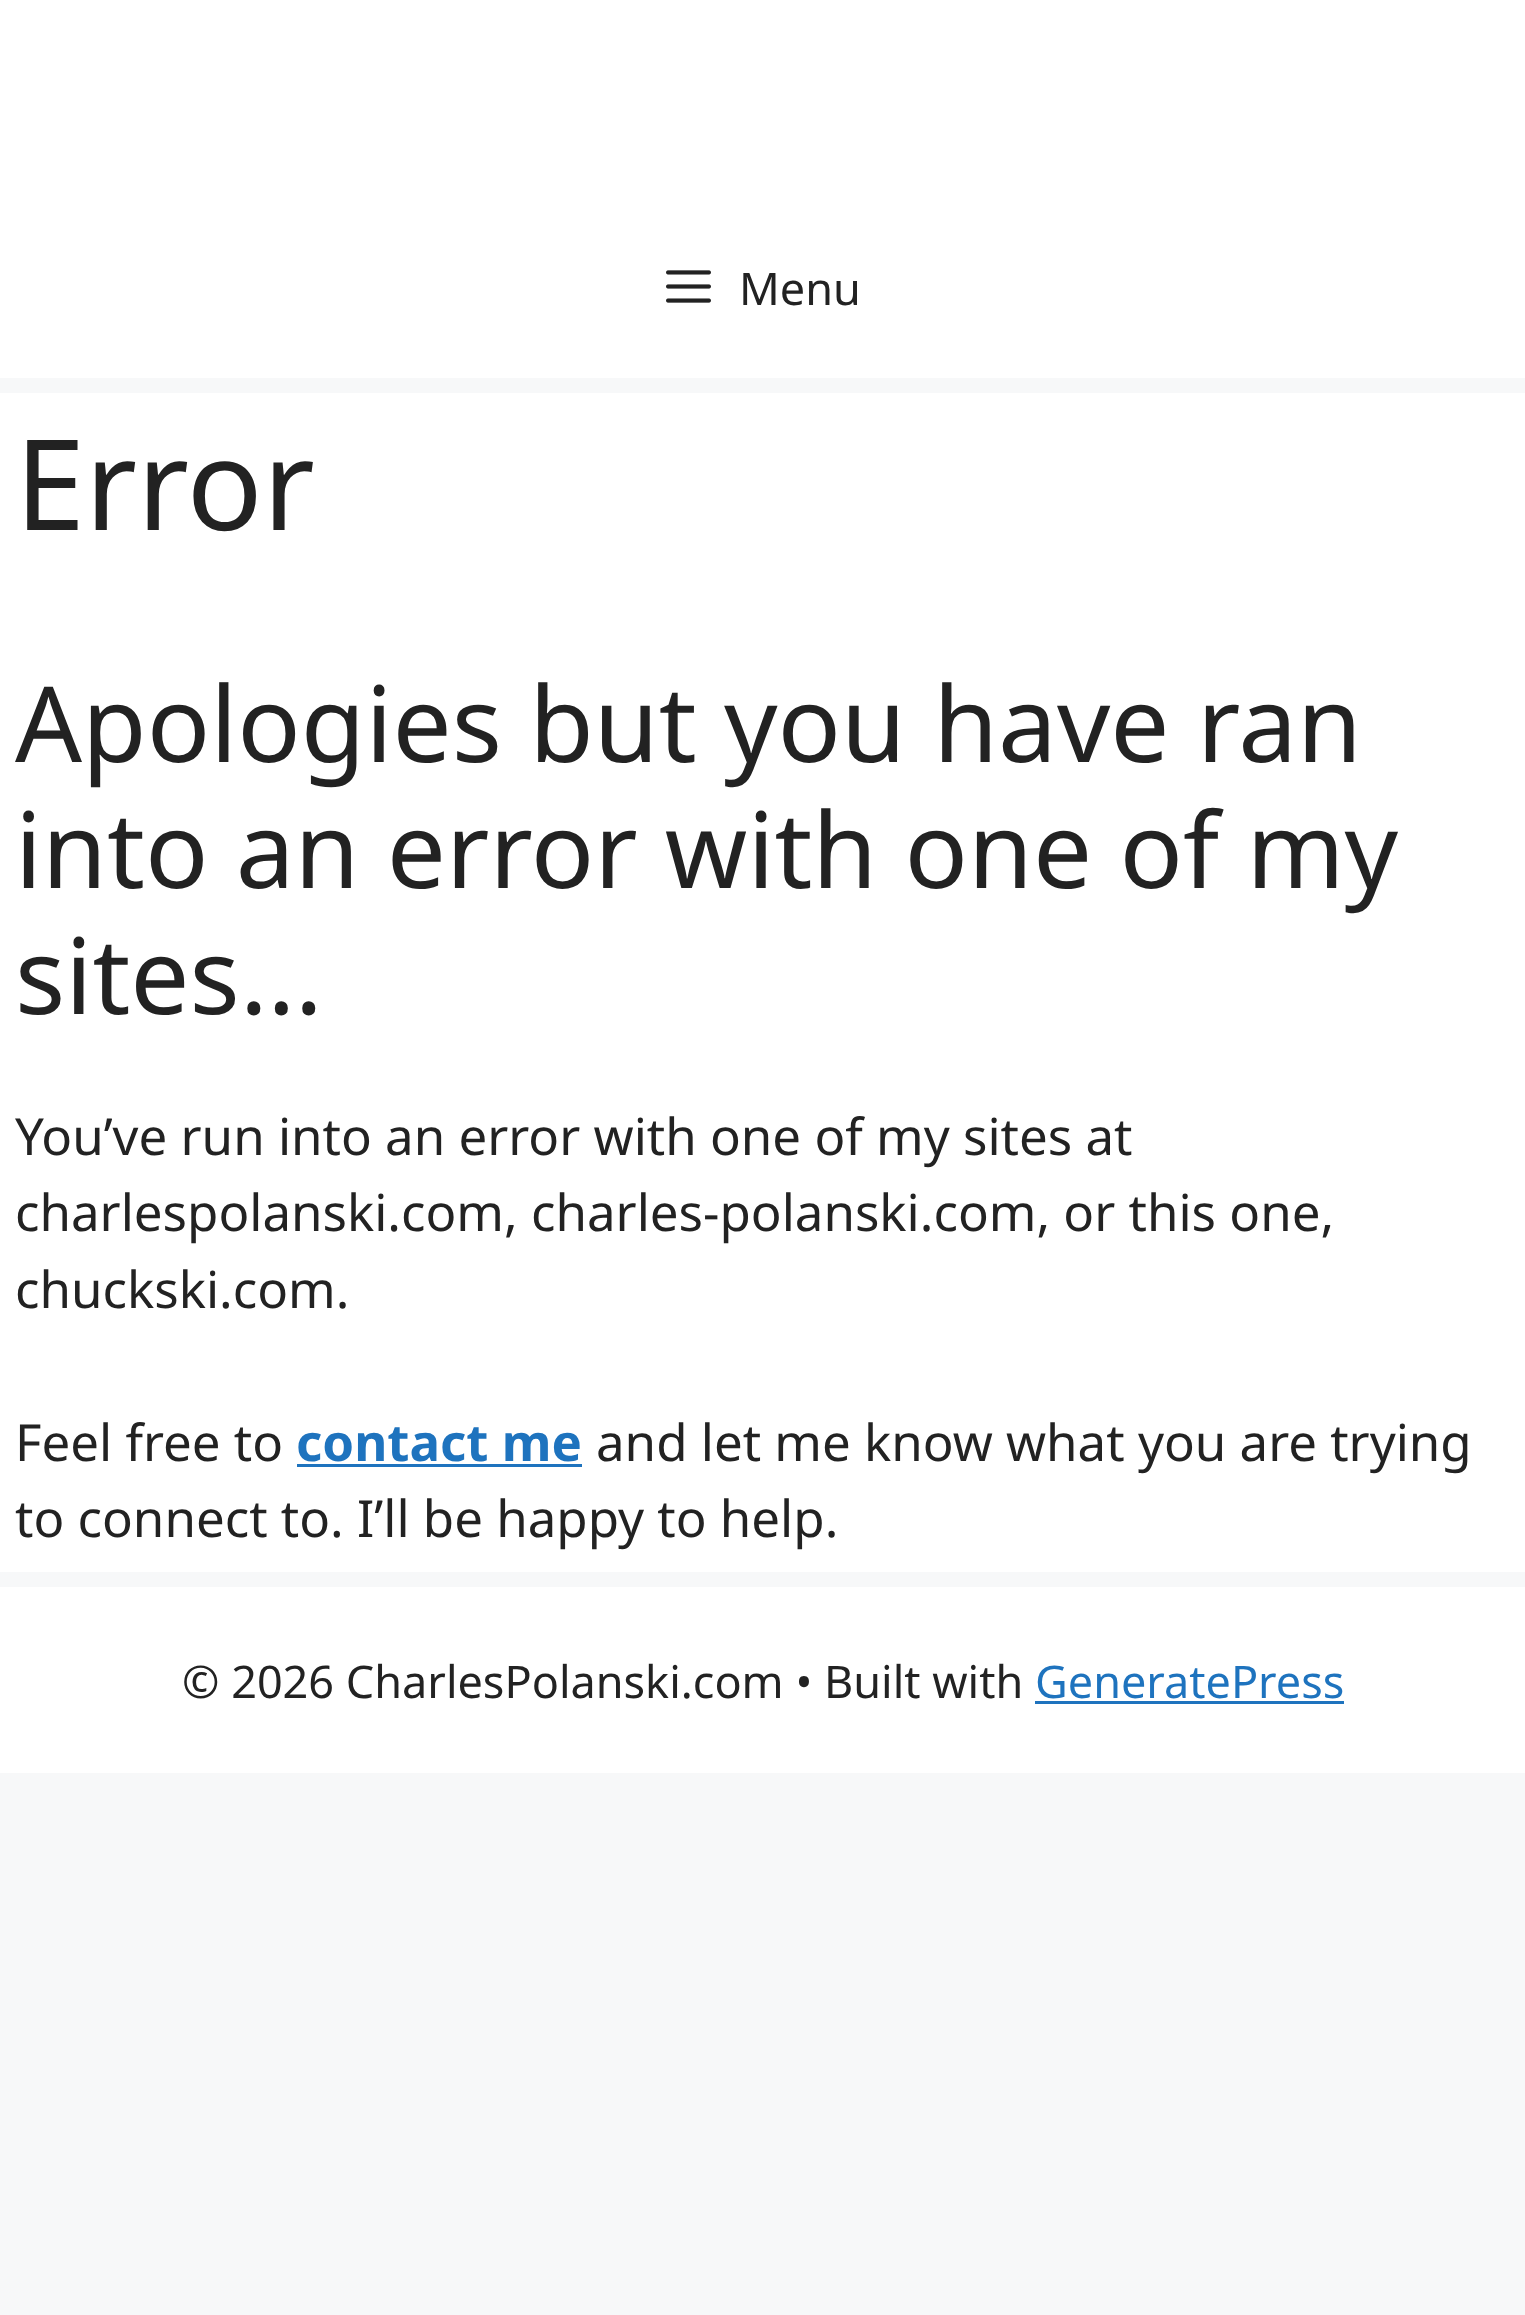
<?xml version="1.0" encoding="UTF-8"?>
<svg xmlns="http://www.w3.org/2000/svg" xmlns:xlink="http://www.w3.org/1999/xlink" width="1525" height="2315">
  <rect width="100%" height="100%" fill="#f7f8f9" />
  <rect width="1525" height="378" fill="#ffffff" />
  <image x="666" y="270" width="45" height="33" xlink:href="image1.png" />
  <rect y="393" width="1525" height="1179" fill="#ffffff" />
  <rect x="297" y="1464" width="285" height="3" fill="#1e73be" />
  <rect y="1587" width="1525" height="186" fill="#ffffff" />
  <rect x="1035" y="1701" width="309" height="3" fill="#1e73be" />
  <text x="739" y="305" style="font-family: Noto Sans; font-size: 45px; fill: #222222">Menu</text>
  <text x="15" y="530" style="font-family: Noto Sans; font-size: 126px; fill: #222222">Error</text>
  <text x="15" y="762" style="font-family: Noto Sans; font-size: 105px; fill: #222222">Apologies but you have ran</text>
  <text x="15" y="888" style="font-family: Noto Sans; font-size: 105px; fill: #222222">into an error with one of my</text>
  <text x="15" y="1014" style="font-family: Noto Sans; font-size: 105px; fill: #222222">sites…</text>
  <text x="15" y="1155" style="font-family: Noto Sans; font-size: 51px; fill: #222222">You’ve run into an error with one of my sites at</text>
  <text x="15" y="1231" style="font-family: Noto Sans; font-size: 51px; fill: #222222">charlespolanski.com, charles-polanski.com, or this one,</text>
  <text x="15" y="1308" style="font-family: Noto Sans; font-size: 51px; fill: #222222">chuckski.com.</text>
  <text x="15" y="1461" style="font-family: Noto Sans; font-size: 51px; fill: #222222">Feel free to</text>
  <text x="296" y="1461" style="font-family: Noto Sans; font-size: 51px; font-weight: bold; fill: #1e73be">contact me</text>
  <text x="596" y="1461" style="font-family: Noto Sans; font-size: 51px; fill: #222222">and let me know what you are trying</text>
  <text x="15" y="1537" style="font-family: Noto Sans; font-size: 51px; fill: #222222">to connect to. I’ll be happy to help.</text>
  <text x="182" y="1698" style="font-family: Noto Sans; font-size: 45px; fill: #222222">© 2026 CharlesPolanski.com • Built with</text>
  <text x="1035" y="1698" style="font-family: Noto Sans; font-size: 45px; fill: #1e73be">GeneratePress</text>
</svg>
